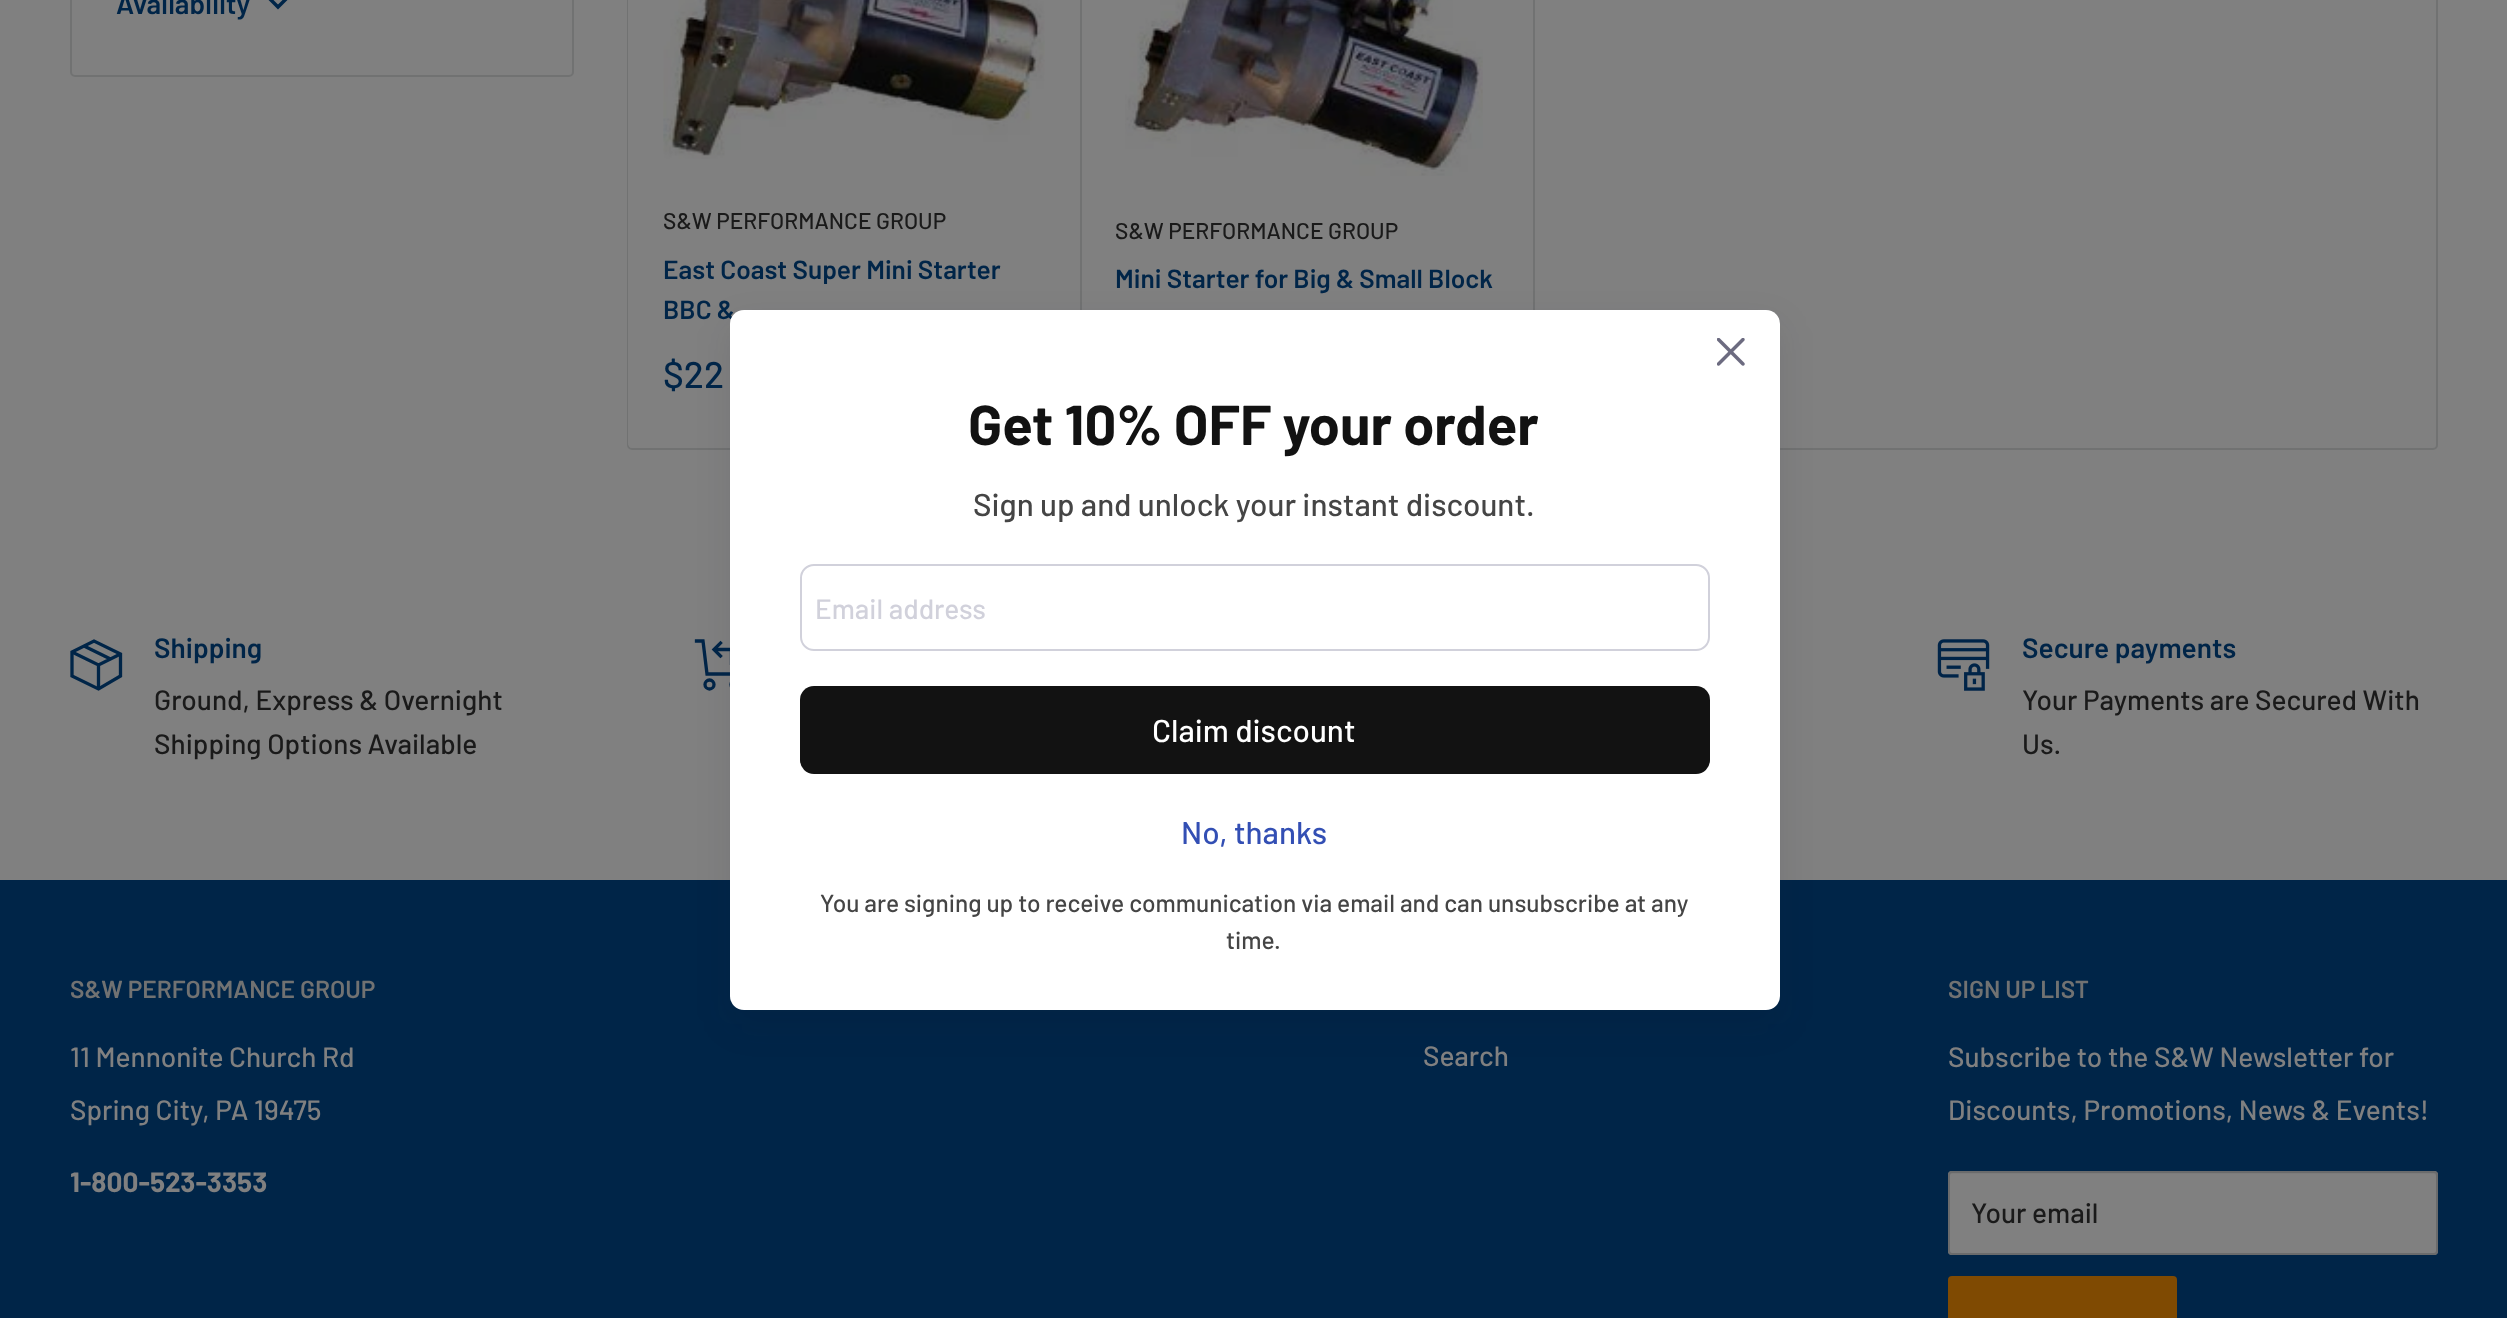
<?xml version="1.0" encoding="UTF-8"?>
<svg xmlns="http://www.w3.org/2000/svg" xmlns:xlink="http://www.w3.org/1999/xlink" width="2507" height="1318">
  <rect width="100%" height="100%" fill="#808080" />
  <rect x="71" y="-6" width="502" height="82" rx="4" fill="none" stroke="#717272" stroke-width="2" />
  <path d="M 285 0 l -7 7 l -7 -7" fill="none" stroke="#002548" stroke-width="3.5" stroke-linecap="square" />
  <rect x="628" y="-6" width="1809" height="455" rx="4" fill="none" stroke="#717272" stroke-width="2" />
  <rect x="628" y="-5" width="1808" height="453" rx="5" fill="#808080" />
  <path d="M 633 -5 h 447 v 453 h -447 c -3 0 -5 -2 -5 -5 v -443 c 0 -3 2 -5 5 -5 z" fill="#808080" />
  <image x="663" y="0" width="382" height="159" xlink:href="image1.png" />
  <rect x="1080" width="2" height="310" fill="#717272" />
  <image x="1125" y="0" width="358" height="176" xlink:href="image2.png" />
  <rect x="1533" width="2" height="310" fill="#717272" />
  <path d="M 714 649.5 h 17.5 v 15.5" fill="none" stroke="#002548" stroke-width="3.3" />
  <path d="M 720.5 656 l -6.5 -6.5 l 6.5 -6.5" fill="none" stroke="#002548" stroke-width="3.3" stroke-linecap="square" />
  <path d="M 742 652 l -4 22 h -31 l -4 -33 h -6.5" fill="none" stroke="#002548" stroke-width="3.3" stroke-linecap="square" />
  <circle cx="709.5" cy="684.5" r="4.5" fill="none" stroke="#002548" stroke-width="3.3" />
  <circle cx="735.5" cy="684.5" r="4.5" fill="none" stroke="#002548" stroke-width="3.3" />
  <rect y="880" width="2507" height="438" fill="#002548" />
  <rect x="730" y="324" width="1050" height="700" rx="14" fill="#121127" fill-opacity="0.1" filter="blur(17.5px)" />
  <path d="M 84 646 l 26.5 13 m 10 -5 l -22 11 l -26.5 -13 m 26.5 13 v 24" fill="none" stroke="#002548" stroke-width="3.3" />
  <path d="M 120.5 654 v 22 l -22 13 l -26.5 -13 v -24 l 22 -11 z" fill="none" stroke="#002548" stroke-width="3.3" stroke-linecap="square" />
  <image x="1937" y="639" width="53" height="52" xlink:href="image4.png" />
  <rect x="1948" y="1171" width="490" height="84" rx="4" fill="#808080" />
  <path d="M 1951 1174 h 483 c 1 0 2 1 2 2 c 0 -1 0 -3 -2 -3 h -482 l -2 1 v 2 c 0 -1 0 -2 1 -2 z" fill="#7c7c7c" />
  <rect x="1949" y="1172" width="488" height="82" rx="3" fill="none" stroke="#6a6b6c" stroke-width="2" />
  <rect x="1948" y="1276" width="229" height="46" rx="4" fill="#7f4a02" />
  <text x="116" y="14" style="font-family: Barlow; font-size: 28px; font-weight: 600; fill: #002548">Availability</text>
  <text x="663" y="229" style="font-family: Barlow; font-size: 22.75px; font-weight: 500; fill: #1a1a1a">S&amp;W PERFORMANCE GROUP</text>
  <text x="663" y="279" style="font-family: Barlow; font-size: 26.25px; font-weight: 600; fill: #002548">East Coast Super Mini Starter</text>
  <text x="663" y="319" style="font-family: Barlow; font-size: 26.25px; font-weight: 600; fill: #002548">BBC &amp;</text>
  <text x="663" y="388" style="font-family: Barlow; font-size: 37px; font-weight: 500; fill: #002548">$22</text>
  <text x="1115" y="239" style="font-family: Barlow; font-size: 22.75px; font-weight: 500; fill: #1a1a1a">S&amp;W PERFORMANCE GROUP</text>
  <text x="1115" y="288" style="font-family: Barlow; font-size: 26.25px; font-weight: 600; fill: #002548">Mini Starter for Big &amp; Small Block</text>
  <rect x="730" y="310" width="1050" height="700" rx="14" fill="#ffffff" />
  <image x="1717" y="338" width="28" height="28" xlink:href="image3.png" />
  <text x="968" y="445" style="font-family: Barlow; font-size: 56px; font-weight: bold; fill: #121212">Get 10% OFF your order</text>
  <text x="973" y="516" style="font-family: Barlow; font-size: 31.5px; font-weight: 500; fill: #454545">Sign up and unlock your instant discount.</text>
  <rect x="801" y="565" width="908" height="85" rx="13" fill="none" stroke="#d1d1db" stroke-width="2" />
  <text x="815" y="619" style="font-family: Barlow; font-size: 28px; font-weight: 500; fill: #d1d1db">Email address</text>
  <rect x="800" y="686" width="910" height="88" rx="14" fill="#121212" />
  <text x="1152" y="742" style="font-family: Barlow; font-size: 31.5px; font-weight: 500; fill: #ffffff">Claim discount</text>
  <text x="1181" y="844" style="font-family: Barlow; font-size: 31.5px; font-weight: 500; fill: #334fb4">No, thanks</text>
  <text x="820" y="912" style="font-family: Barlow; font-size: 24.5px; font-weight: 500; fill: #454545">You are signing up to receive communication via email and can unsubscribe at any</text>
  <text x="1226" y="949" style="font-family: Barlow; font-size: 24.5px; font-weight: 500; fill: #454545">time.</text>
  <text x="154" y="658" style="font-family: Barlow; font-size: 28px; font-weight: 600; fill: #002548">Shipping</text>
  <text x="154" y="710" style="font-family: Barlow; font-size: 28px; font-weight: 500; fill: #1a1a1a">Ground, Express &amp; Overnight</text>
  <text x="154" y="754" style="font-family: Barlow; font-size: 28px; font-weight: 500; fill: #1a1a1a">Shipping Options Available</text>
  <text x="2022" y="658" style="font-family: Barlow; font-size: 28px; font-weight: 600; fill: #002548">Secure payments</text>
  <text x="2022" y="710" style="font-family: Barlow; font-size: 28px; font-weight: 500; fill: #1a1a1a">Your Payments are Secured With</text>
  <text x="2022" y="754" style="font-family: Barlow; font-size: 28px; font-weight: 500; fill: #1a1a1a">Us.</text>
  <text x="70" y="998" style="font-family: Barlow; font-size: 24.5px; font-weight: 600; fill: #717272">S&amp;W PERFORMANCE GROUP</text>
  <text x="70" y="1067" style="font-family: Barlow; font-size: 28px; font-weight: 500; fill: #808080">11 Mennonite Church Rd</text>
  <text x="70" y="1120" style="font-family: Barlow; font-size: 28px; font-weight: 500; fill: #808080">Spring City, PA 19475</text>
  <text x="70" y="1192" style="font-family: Barlow; font-size: 28px; font-weight: bold; fill: #808080">1-800-523-3353</text>
  <text x="1423" y="1066" style="font-family: Barlow; font-size: 28px; font-weight: 500; fill: #808080">Search</text>
  <text x="1948" y="998" style="font-family: Barlow; font-size: 24.5px; font-weight: 600; fill: #717272">SIGN UP LIST</text>
  <text x="1948" y="1067" style="font-family: Barlow; font-size: 28px; font-weight: 500; fill: #808080">Subscribe to the S&amp;W Newsletter for</text>
  <text x="1948" y="1120" style="font-family: Barlow; font-size: 28px; font-weight: 500; fill: #808080">Discounts, Promotions, News &amp; Events!</text>
  <text x="1971" y="1223" style="font-family: Barlow; font-size: 28px; font-weight: 500; fill: #1a1a1a">Your email</text>
</svg>
